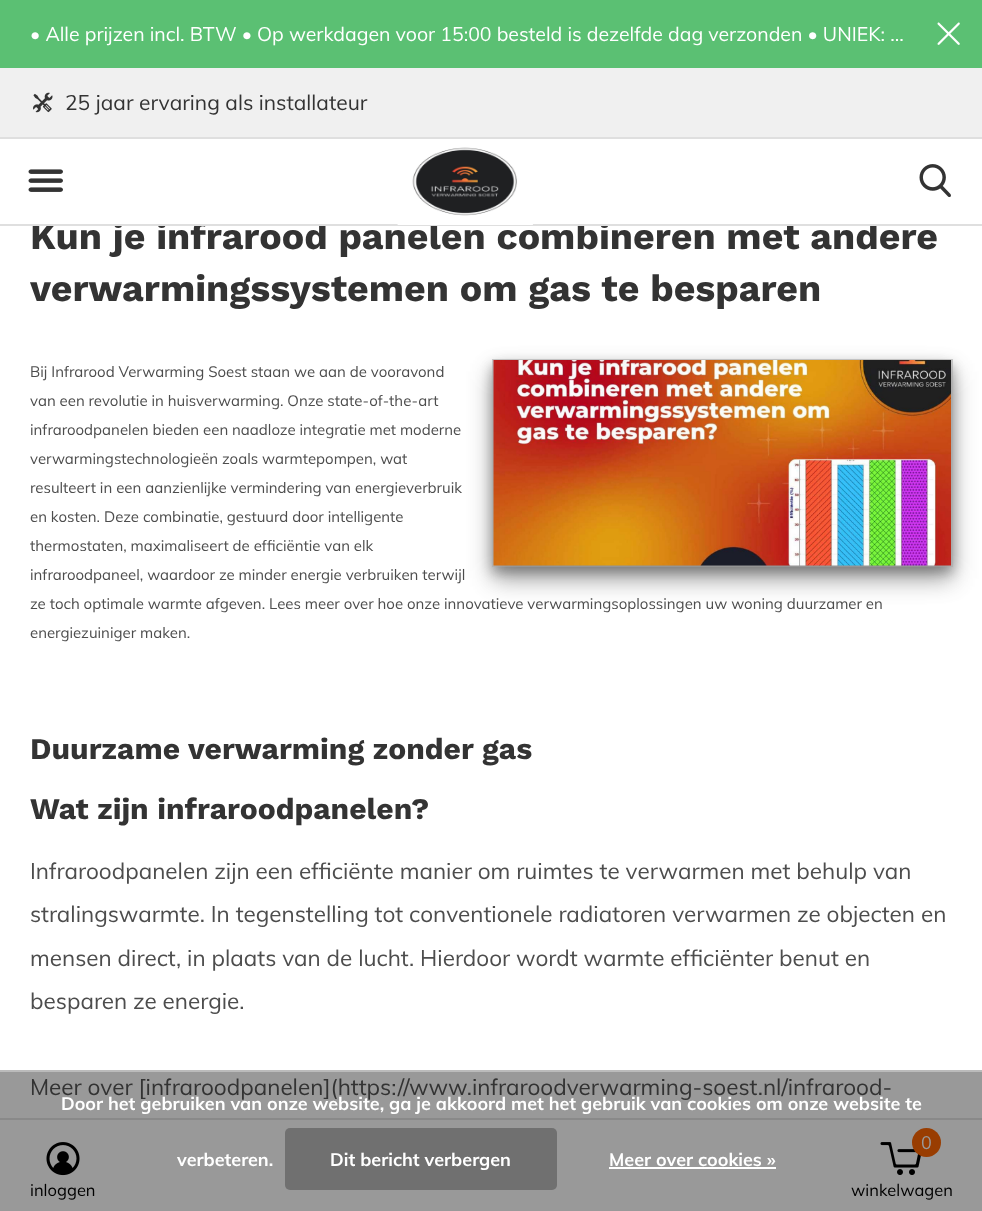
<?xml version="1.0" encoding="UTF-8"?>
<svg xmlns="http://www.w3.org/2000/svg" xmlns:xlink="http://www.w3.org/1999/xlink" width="982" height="1211">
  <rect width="100%" height="100%" fill="#ffffff" />
  <rect y="1072" width="982" height="46" fill="#999999" />
  <rect width="982" height="68" fill="#5bc073" />
  <image x="937" y="22" width="23" height="23" xlink:href="image1.png" />
  <rect y="68" width="982" height="69" fill="#f0f0f0" />
  <rect y="137" width="982" height="2" fill="#dfdfdf" />
  <image x="33" y="92" width="20" height="21" xlink:href="image2.png" />
  <image x="28" y="169" width="35" height="23" xlink:href="image3.png" />
  <image x="919" y="164" width="32" height="34" xlink:href="image5.png" />
  <rect x="492" y="365" width="461" height="208" fill="#000000" fill-opacity="0.15" filter="blur(6px)" />
  <rect x="492" y="371" width="461" height="208" fill="#000000" fill-opacity="0.2" filter="blur(12px)" />
  <rect x="493" y="360" width="459" height="206" fill="none" stroke="#cccccc" stroke-width="2" />
  <rect x="494" y="366" width="457" height="206" fill="#000000" fill-opacity="0.15" filter="blur(6px)" />
  <rect x="494" y="372" width="457" height="206" fill="#000000" fill-opacity="0.2" filter="blur(12px)" />
  <image x="493" y="360" width="458" height="206" xlink:href="image6.png" />
  <rect y="1120" width="982" height="91" fill="#999999" />
  <rect y="1118" width="982" height="2" fill="#898989" />
  <image x="46" y="1142" width="34" height="34" xlink:href="image7.png" />
  <image x="880" y="1142" width="41" height="33" xlink:href="image8.png" />
  <circle cx="926.5" cy="1142.5" r="14.5" fill="#993d01" />
  <rect y="1070" width="982" height="2" fill="#bbbbbb" />
  <rect x="285" y="1128" width="272" height="62" rx="5" fill="#707070" />
  <rect x="609" y="1167" width="167" height="2" fill="#ffffff" />
  <text x="30" y="41" style="font-family: Muli; font-size: 19.5px; fill: #ffffff">• Alle prijzen incl. BTW • Op werkdagen voor 15:00 besteld is dezelfde dag verzonden • UNIEK: …</text>
  <text x="65" y="110" style="font-family: Muli; font-size: 21px; fill: #333333">25 jaar ervaring als installateur</text>
  <text x="30" y="249" style="font-family: Work Sans; font-size: 37.5px; font-weight: bold; fill: #333333">Kun je infrarood panelen combineren met andere</text>
  <rect y="224" width="982" height="2" fill="#dfdfdf" />
  <rect x="114" y="221" width="763" height="3" fill="#ffffff" />
  <image x="397" y="147" width="136" height="78" xlink:href="image4.png" />
  <text x="30" y="301" style="font-family: Work Sans; font-size: 37.5px; font-weight: bold; fill: #333333">verwarmingssystemen om gas te besparen</text>
  <text x="30" y="377" style="font-family: Muli; font-size: 15px; fill: #4d4d4d">Bij Infrarood Verwarming Soest staan we aan de vooravond</text>
  <text x="30" y="406" style="font-family: Muli; font-size: 15px; fill: #4d4d4d">van een revolutie in huisverwarming. Onze state-of-the-art</text>
  <text x="30" y="435" style="font-family: Muli; font-size: 15px; fill: #4d4d4d">infraroodpanelen bieden een naadloze integratie met moderne</text>
  <text x="30" y="464" style="font-family: Muli; font-size: 15px; fill: #4d4d4d">verwarmingstechnologieën zoals warmtepompen, wat</text>
  <text x="30" y="493" style="font-family: Muli; font-size: 15px; fill: #4d4d4d">resulteert in een aanzienlijke vermindering van energieverbruik</text>
  <text x="30" y="522" style="font-family: Muli; font-size: 15px; fill: #4d4d4d">en kosten. Deze combinatie, gestuurd door intelligente</text>
  <text x="30" y="551" style="font-family: Muli; font-size: 15px; fill: #4d4d4d">thermostaten, maximaliseert de efficiëntie van elk</text>
  <text x="30" y="580" style="font-family: Muli; font-size: 15px; fill: #4d4d4d">infraroodpaneel, waardoor ze minder energie verbruiken terwijl</text>
  <text x="30" y="609" style="font-family: Muli; font-size: 15px; fill: #4d4d4d">ze toch optimale warmte afgeven. Lees meer over hoe onze innovatieve verwarmingsoplossingen uw woning duurzamer en</text>
  <text x="30" y="638" style="font-family: Muli; font-size: 15px; fill: #4d4d4d">energiezuiniger maken.</text>
  <text x="30" y="759" style="font-family: Work Sans; font-size: 30px; font-weight: bold; fill: #333333">Duurzame verwarming zonder gas</text>
  <text x="30" y="819" style="font-family: Work Sans; font-size: 30px; font-weight: bold; fill: #333333">Wat zijn infraroodpanelen?</text>
  <text x="30" y="879" style="font-family: Muli; font-size: 22.5px; fill: #4d4d4d">Infraroodpanelen zijn een efficiënte manier om ruimtes te verwarmen met behulp van</text>
  <text x="30" y="922" style="font-family: Muli; font-size: 22.5px; fill: #4d4d4d">stralingswarmte. In tegenstelling tot conventionele radiatoren verwarmen ze objecten en</text>
  <text x="30" y="966" style="font-family: Muli; font-size: 22.5px; fill: #4d4d4d">mensen direct, in plaats van de lucht. Hierdoor wordt warmte efficiënter benut en</text>
  <text x="30" y="1009" style="font-family: Muli; font-size: 22.5px; fill: #4d4d4d">besparen ze energie.</text>
  <text x="30" y="1095" style="font-family: Muli; font-size: 22.5px; fill: #333333">Meer over [infraroodpanelen](https://www.infraroodverwarming-soest.nl/infrarood-</text>
  <text x="30" y="1196" style="font-family: Muli; font-size: 16.5px; fill: #000000">inloggen</text>
  <text x="921" y="1149" style="font-family: Muli; font-size: 18px; fill: #999999">0</text>
  <text x="851" y="1196" style="font-family: Muli; font-size: 16.5px; fill: #000000">winkelwagen</text>
  <text x="61" y="1110" style="font-family: Muli; font-size: 18px; font-weight: bold; fill: #ffffff">Door het gebruiken van onze website, ga je akkoord met het gebruik van cookies om onze website te</text>
  <text x="177" y="1166" style="font-family: Muli; font-size: 18px; font-weight: bold; fill: #ffffff">verbeteren.</text>
  <text x="330" y="1166" style="font-family: Muli; font-size: 18px; font-weight: bold; fill: #ffffff">Dit bericht verbergen</text>
  <text x="609" y="1166" style="font-family: Muli; font-size: 18px; font-weight: bold; fill: #ffffff">Meer over cookies »</text>
</svg>
